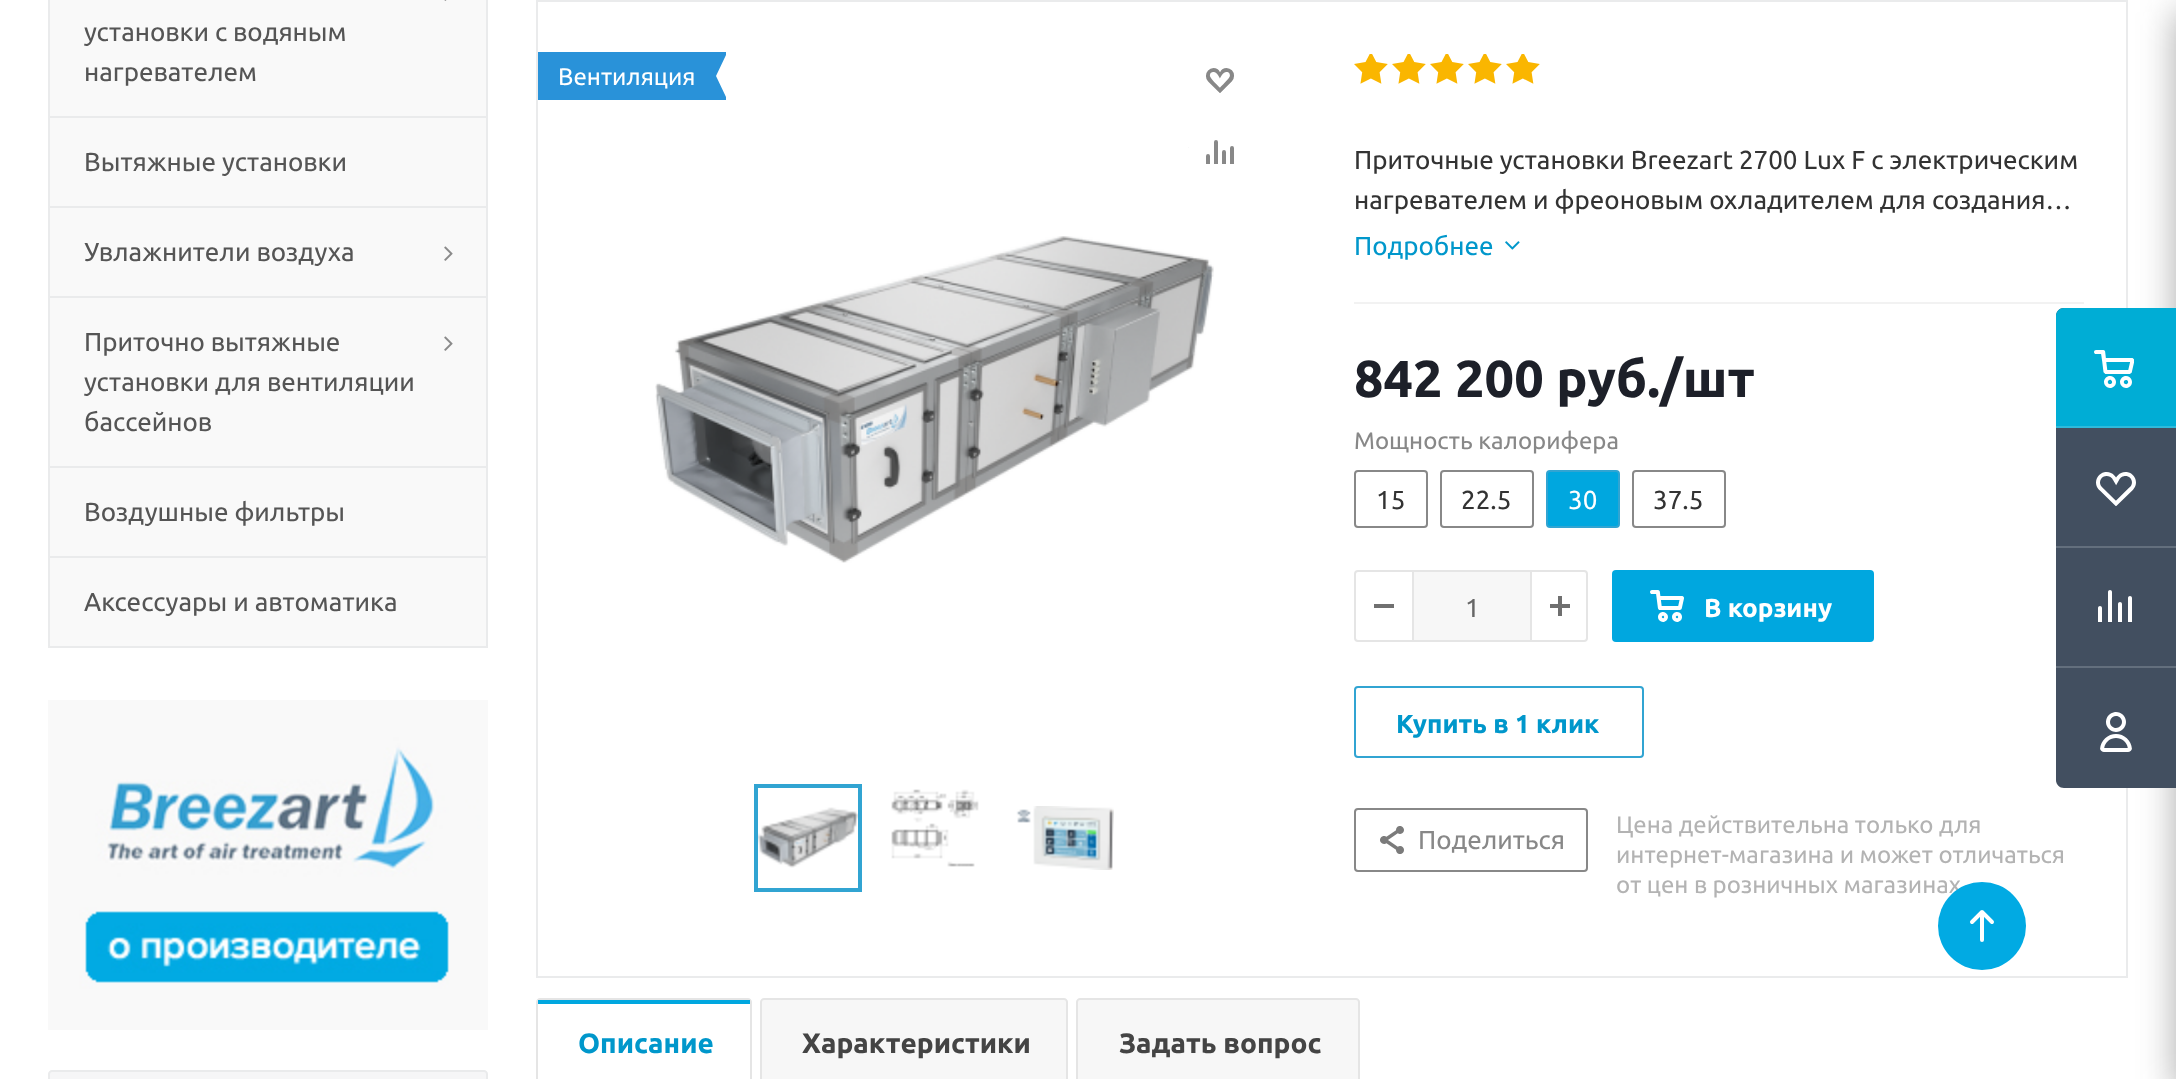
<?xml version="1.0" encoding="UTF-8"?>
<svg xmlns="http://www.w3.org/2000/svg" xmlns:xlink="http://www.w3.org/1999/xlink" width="2176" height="1079">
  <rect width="100%" height="100%" fill="#ffffff" />
  <rect x="50" width="436" height="116" fill="#f9f9f9" />
  <rect x="486" width="2" height="116" fill="#eaebec" />
  <rect x="48" width="2" height="116" fill="#eaebec" />
  <image x="444" y="0" width="3" height="1" xlink:href="image1.png" />
  <rect x="50" y="118" width="436" height="88" fill="#f9f9f9" />
  <rect x="48" y="116" width="440" height="2" fill="#eaebec" />
  <rect x="486" y="116" width="2" height="90" fill="#eaebec" />
  <rect x="48" y="116" width="2" height="90" fill="#eaebec" />
  <rect x="50" y="208" width="436" height="88" fill="#f9f9f9" />
  <rect x="48" y="206" width="440" height="2" fill="#eaebec" />
  <rect x="486" y="206" width="2" height="90" fill="#eaebec" />
  <rect x="48" y="206" width="2" height="90" fill="#eaebec" />
  <image x="444" y="246" width="9" height="15" xlink:href="image2.png" />
  <rect x="50" y="298" width="436" height="168" fill="#f9f9f9" />
  <rect x="48" y="296" width="440" height="2" fill="#eaebec" />
  <rect x="486" y="296" width="2" height="170" fill="#eaebec" />
  <rect x="48" y="296" width="2" height="170" fill="#eaebec" />
  <image x="444" y="336" width="9" height="15" xlink:href="image2.png" />
  <rect x="50" y="468" width="436" height="88" fill="#f9f9f9" />
  <rect x="48" y="466" width="440" height="2" fill="#eaebec" />
  <rect x="486" y="466" width="2" height="90" fill="#eaebec" />
  <rect x="48" y="466" width="2" height="90" fill="#eaebec" />
  <rect x="49" y="557" width="438" height="90" fill="#f9f9f9" stroke="#eaebec" stroke-width="2" />
  <image x="48" y="700" width="440" height="330" xlink:href="image3.png" />
  <path d="M 52 1071 h 432 c 1.5 0 3 1.5 3 3 v 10 h -438 v -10 c 0 -1.5 1.5 -3 3 -3 z" fill="#f6f6f7" stroke="#eaebec" stroke-width="2" />
  <rect x="537" y="1" width="1590" height="976" fill="none" stroke="#eaebec" stroke-width="2" />
  <rect x="538" y="52" width="178" height="48" fill="#2992d9" />
  <image x="716" y="52" width="10" height="48" xlink:href="image4.png" />
  <image x="1206" y="68" width="28" height="25" xlink:href="image5.png" />
  <image x="1188" y="140" width="46" height="24" xlink:href="image6.png" />
  <image x="655" y="236" width="559" height="327" xlink:href="image7.png" />
  <rect x="756" y="786" width="104" height="104" fill="none" stroke="#31a4d2" stroke-width="4" />
  <image x="758" y="807" width="100" height="61" xlink:href="image8.png" />
  <image x="891" y="789" width="88" height="78" xlink:href="image9.png" />
  <image x="1016" y="806" width="98" height="64" xlink:href="image10.png" />
  <rect x="1354" y="302" width="730" height="2" fill="#f2f2f2" />
  <image x="1354" y="54" width="34" height="30" xlink:href="image11.png" />
  <image x="1392" y="54" width="34" height="30" xlink:href="image11.png" />
  <image x="1430" y="54" width="34" height="30" xlink:href="image11.png" />
  <image x="1468" y="54" width="34" height="30" xlink:href="image11.png" />
  <image x="1506" y="54" width="34" height="30" xlink:href="image12.png" />
  <image x="1505" y="241" width="15" height="9" xlink:href="image13.png" />
  <rect x="1355" y="471" width="72" height="56" rx="3" fill="none" stroke="#888888" stroke-width="2" />
  <rect x="1441" y="471" width="92" height="56" rx="3" fill="none" stroke="#888888" stroke-width="2" />
  <rect x="1547" y="471" width="72" height="56" rx="3" fill="#00a7df" stroke="#31a4d2" stroke-width="2" />
  <rect x="1633" y="471" width="92" height="56" rx="3" fill="none" stroke="#888888" stroke-width="2" />
  <rect x="1355" y="571" width="232" height="70" rx="3" fill="none" stroke="#e5e5e5" stroke-width="2" />
  <rect x="1374" y="604" width="20" height="4" fill="#707070" />
  <rect x="1414" y="572" width="116" height="68" fill="#f7f7f7" />
  <rect x="1530" y="572" width="2" height="68" fill="#e5e5e5" />
  <rect x="1412" y="572" width="2" height="68" fill="#e5e5e5" />
  <image x="1550" y="596" width="20" height="20" xlink:href="image14.png" />
  <rect x="1612" y="570" width="262" height="72" rx="4" fill="#00a7df" />
  <image x="1650" y="590" width="34" height="32" xlink:href="image15.png" />
  <rect x="1355" y="687" width="288" height="70" rx="3" fill="none" stroke="#31a4d2" stroke-width="2" />
  <rect x="1355" y="809" width="232" height="62" rx="3" fill="none" stroke="#888888" stroke-width="2" />
  <image x="1380" y="826" width="24" height="28" xlink:href="image16.png" />
  <path d="M 540 999 h 208 c 1.5 0 3 1.5 3 3 v 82 h -214 v -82 c 0 -1.5 1.5 -3 3 -3 z" fill="none" stroke="#e5e5e5" stroke-width="2" />
  <rect x="538" y="1000" width="212" height="4" fill="#00a7df" />
  <path d="M 764 999 h 300 c 1.5 0 3 1.5 3 3 v 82 h -306 v -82 c 0 -1.5 1.5 -3 3 -3 z" fill="#f7f7f7" stroke="#e5e5e5" stroke-width="2" />
  <path d="M 1080 999 h 276 c 1.5 0 3 1.5 3 3 v 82 h -282 v -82 c 0 -1.5 1.5 -3 3 -3 z" fill="#f7f7f7" stroke="#e5e5e5" stroke-width="2" />
  <rect x="2176" y="12" width="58" height="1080" rx="4" fill="#2c2c2c" fill-opacity="0.4" filter="blur(18px)" />
  <path d="M 2064 308 h 112 v 480 h -112 c -4.5 0 -8 -3.5 -8 -8 v -464 c 0 -4.5 3.5 -8 8 -8 z" fill="#424f60" />
  <path d="M 2064 308 h 112 v 120 h -120 v -112 c 0 -4.5 3.5 -8 8 -8 z" fill="#00add5" />
  <image x="2094" y="350" width="40" height="38" xlink:href="image17.png" />
  <rect x="2056" y="426" width="120" height="2" fill="#2ebadb" />
  <image x="2096" y="472" width="40" height="34" xlink:href="image18.png" />
  <rect x="2056" y="546" width="120" height="2" fill="#636f7d" />
  <image x="2098" y="590" width="34" height="32" xlink:href="image19.png" />
  <rect x="2056" y="666" width="120" height="2" fill="#636f7d" />
  <image x="2100" y="712" width="32" height="40" xlink:href="image20.png" />
  <text x="84" y="41" style="font-family: Ubuntu; font-size: 26px; fill: #555555">установки с водяным</text>
  <text x="84" y="81" style="font-family: Ubuntu; font-size: 26px; fill: #555555">нагревателем</text>
  <text x="84" y="171" style="font-family: Ubuntu; font-size: 26px; fill: #555555">Вытяжные установки</text>
  <text x="84" y="261" style="font-family: Ubuntu; font-size: 26px; fill: #555555">Увлажнители воздуха</text>
  <text x="84" y="351" style="font-family: Ubuntu; font-size: 26px; fill: #555555">Приточно вытяжные</text>
  <text x="84" y="391" style="font-family: Ubuntu; font-size: 26px; fill: #555555">установки для вентиляции</text>
  <text x="84" y="431" style="font-family: Ubuntu; font-size: 26px; fill: #555555">бассейнов</text>
  <text x="84" y="521" style="font-family: Ubuntu; font-size: 26px; fill: #555555">Воздушные фильтры</text>
  <text x="84" y="611" style="font-family: Ubuntu; font-size: 26px; fill: #555555">Аксессуары и автоматика</text>
  <text x="558" y="85" style="font-family: Ubuntu; font-size: 24px; fill: #ffffff">Вентиляция</text>
  <text x="1354" y="169" style="font-family: Ubuntu; font-size: 26px; fill: #333333">Приточные установки Breezart 2700 Lux F с электрическим</text>
  <text x="1354" y="209" style="font-family: Ubuntu; font-size: 26px; fill: #333333">нагревателем и фреоновым охладителем для создания…</text>
  <text x="1354" y="255" style="font-family: Ubuntu; font-size: 26px; fill: #0097cb">Подробнее</text>
  <text x="1354" y="397" style="font-family: Ubuntu; font-size: 52px; font-weight: bold; fill: #1d2029">842 200 руб./шт</text>
  <text x="1354" y="449" style="font-family: Ubuntu; font-size: 24px; fill: #888888">Мощность калорифера</text>
  <text x="1376" y="509" style="font-family: Ubuntu; font-size: 26px; fill: #333333">15</text>
  <text x="1461" y="509" style="font-family: Ubuntu; font-size: 26px; fill: #333333">22.5</text>
  <text x="1568" y="509" style="font-family: Ubuntu; font-size: 26px; fill: #ffffff">30</text>
  <text x="1653" y="509" style="font-family: Ubuntu; font-size: 26px; fill: #333333">37.5</text>
  <text x="1465" y="617" style="font-family: Ubuntu; font-size: 26px; fill: #666666">1</text>
  <text x="1704" y="617" style="font-family: Ubuntu; font-size: 26px; font-weight: bold; fill: #ffffff">В корзину</text>
  <text x="1396" y="733" style="font-family: Ubuntu; font-size: 26px; font-weight: bold; fill: #0097cb">Купить в 1 клик</text>
  <text x="1418" y="849" style="font-family: Ubuntu; font-size: 26px; fill: #888888">Поделиться</text>
  <text x="1616" y="833" style="font-family: Ubuntu; font-size: 24px; fill: #b3b3b3">Цена действительна только для</text>
  <text x="1616" y="863" style="font-family: Ubuntu; font-size: 24px; fill: #b3b3b3">интернет-магазина и может отличаться</text>
  <text x="1616" y="893" style="font-family: Ubuntu; font-size: 24px; fill: #b3b3b3">от цен в розничных магазинах</text>
  <text x="578" y="1053" style="font-family: Ubuntu; font-size: 28px; font-weight: bold; fill: #0097cb">Описание</text>
  <text x="802" y="1053" style="font-family: Ubuntu; font-size: 28px; font-weight: bold; fill: #444444">Характеристики</text>
  <text x="1119" y="1053" style="font-family: Ubuntu; font-size: 28px; font-weight: bold; fill: #444444">Задать вопрос</text>
  <circle cx="1982" cy="926" r="44" fill="#01aae3" />
  <path d="M 1982 912 v 28 m -10 -18 l 10 -10 l 10 10" fill="none" stroke="#ffffff" stroke-width="4" stroke-linecap="round" stroke-linejoin="round" />
</svg>
